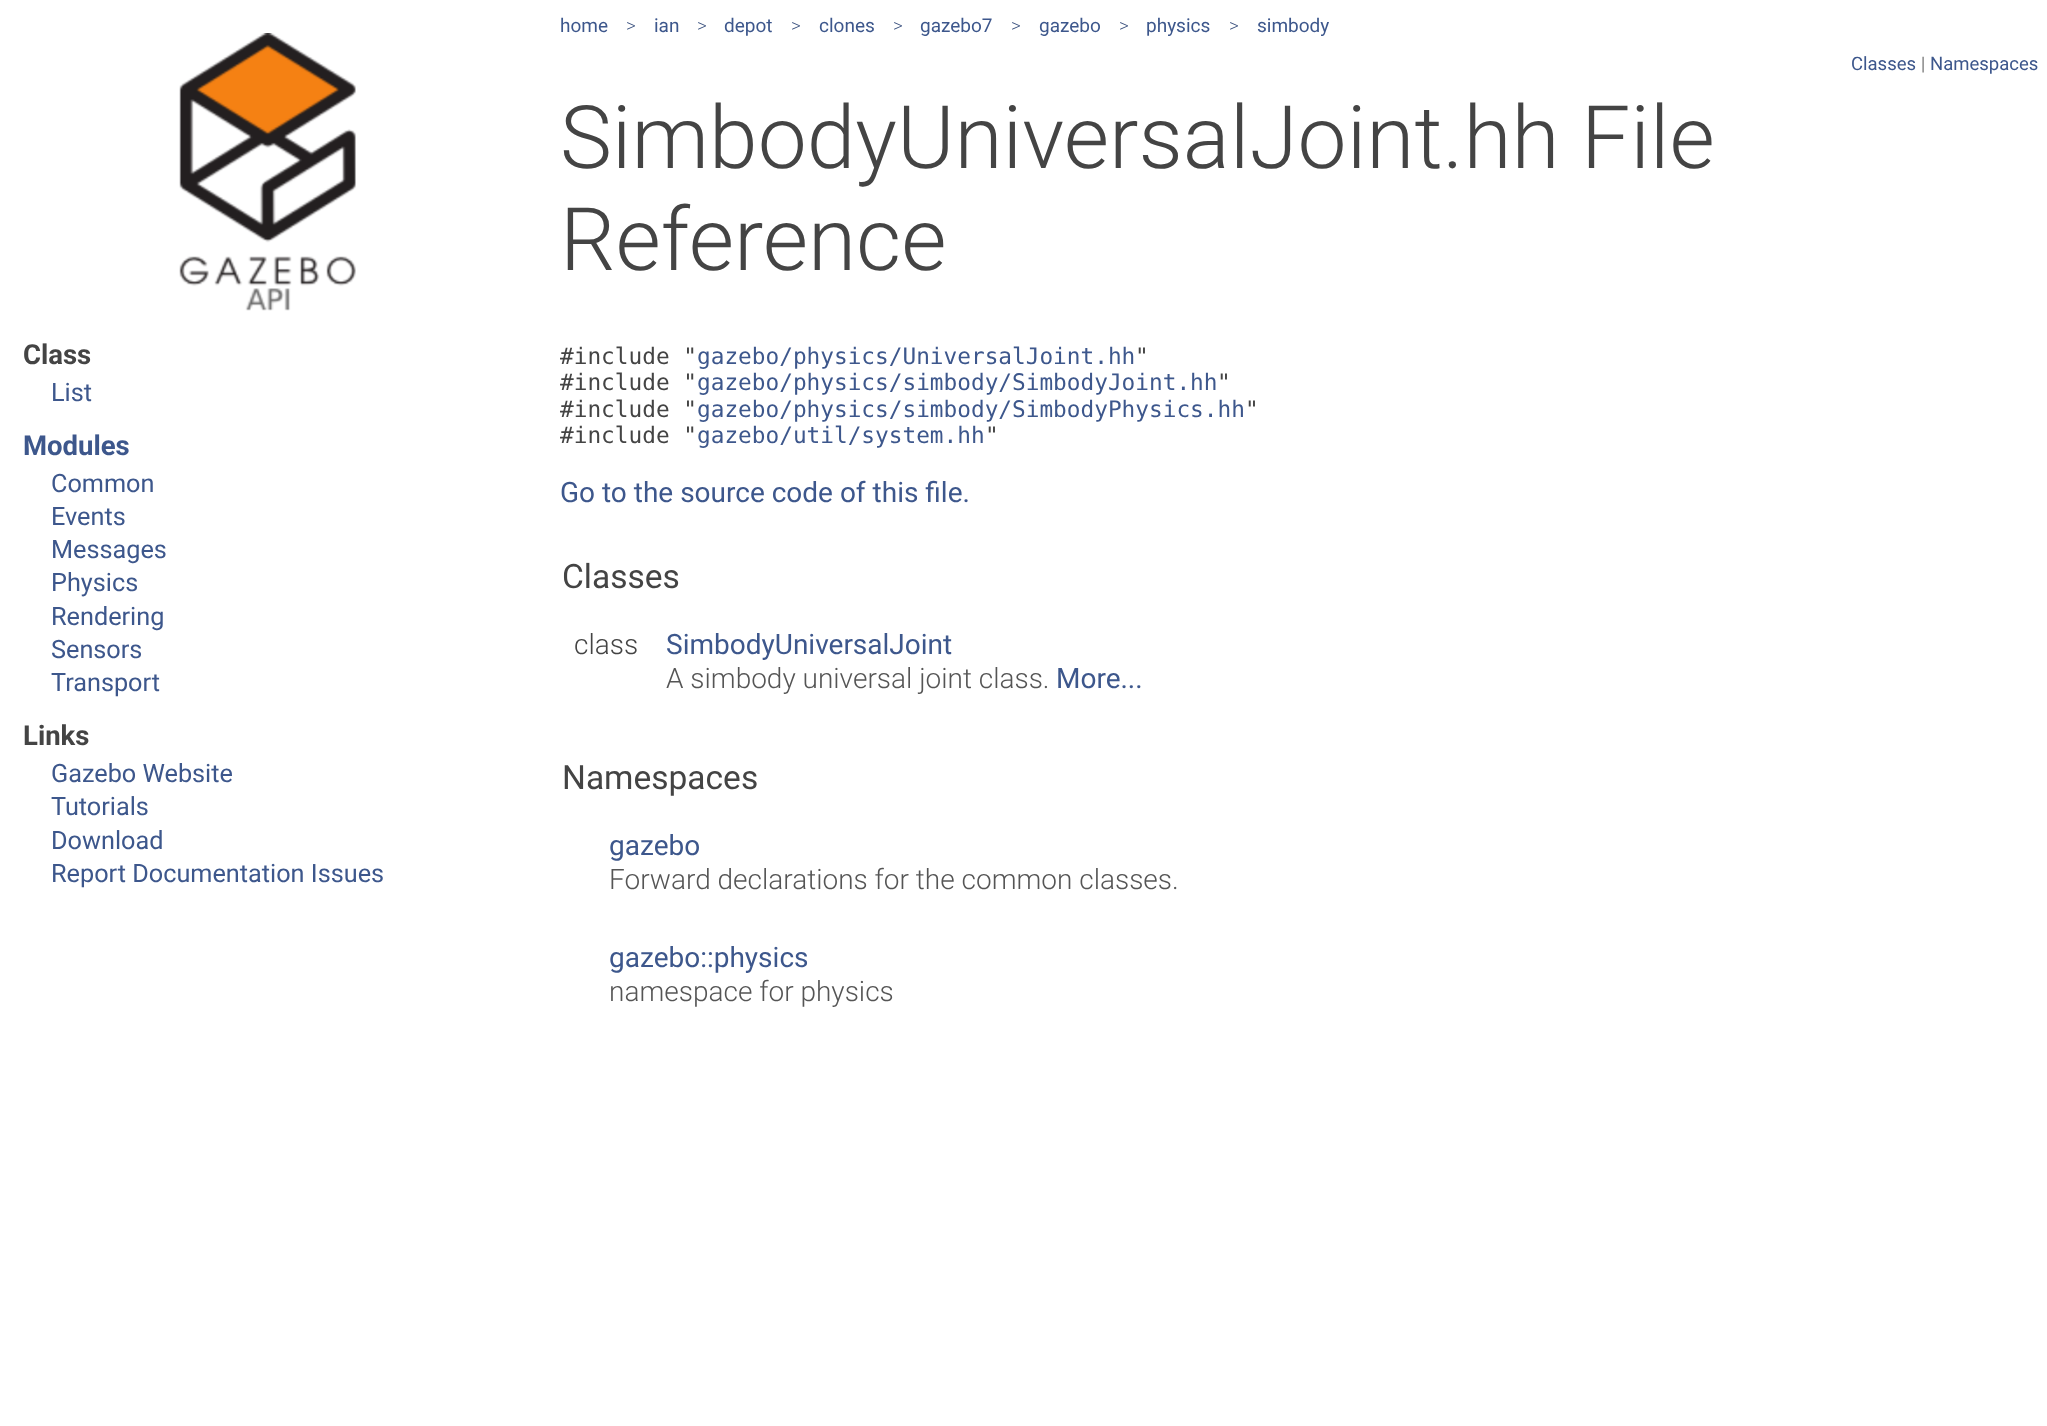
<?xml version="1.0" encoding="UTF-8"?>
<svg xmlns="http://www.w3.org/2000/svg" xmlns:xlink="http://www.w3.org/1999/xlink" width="2047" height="1426">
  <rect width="100%" height="100%" fill="#ffffff" />
  <image x="179" y="33" width="177" height="278" xlink:href="image1.png" />
  <text x="23" y="364" style="font-family: Roboto; font-size: 27.5px; font-weight: bold; fill: #444444">Class</text>
  <text x="51" y="401" style="font-family: Roboto; font-size: 25.25px; fill: #3d578c">List</text>
  <text x="23" y="455" style="font-family: Roboto; font-size: 27.5px; font-weight: bold; fill: #3d578c">Modules</text>
  <text x="51" y="492" style="font-family: Roboto; font-size: 25.25px; fill: #3d578c">Common</text>
  <text x="51" y="525" style="font-family: Roboto; font-size: 25.25px; fill: #3d578c">Events</text>
  <text x="51" y="558" style="font-family: Roboto; font-size: 25.25px; fill: #3d578c">Messages</text>
  <text x="51" y="591" style="font-family: Roboto; font-size: 25.25px; fill: #3d578c">Physics</text>
  <text x="51" y="625" style="font-family: Roboto; font-size: 25.25px; fill: #3d578c">Rendering</text>
  <text x="51" y="658" style="font-family: Roboto; font-size: 25.25px; fill: #3d578c">Sensors</text>
  <text x="51" y="691" style="font-family: Roboto; font-size: 25.25px; fill: #3d578c">Transport</text>
  <text x="23" y="745" style="font-family: Roboto; font-size: 27.5px; font-weight: bold; fill: #444444">Links</text>
  <text x="51" y="782" style="font-family: Roboto; font-size: 25.25px; fill: #3d578c">Gazebo Website</text>
  <text x="51" y="815" style="font-family: Roboto; font-size: 25.25px; fill: #3d578c">Tutorials</text>
  <text x="51" y="849" style="font-family: Roboto; font-size: 25.25px; fill: #3d578c">Download</text>
  <text x="51" y="882" style="font-family: Roboto; font-size: 25.25px; fill: #3d578c">Report Documentation Issues</text>
  <text x="560" y="32" style="font-family: Roboto; font-size: 19px; fill: #3d578c">home</text>
  <text x="626" y="32" style="font-family: Roboto; font-size: 19px; font-weight: 300; fill: #364d7c">&gt;</text>
  <text x="654" y="32" style="font-family: Roboto; font-size: 19px; fill: #3d578c">ian</text>
  <text x="697" y="32" style="font-family: Roboto; font-size: 19px; font-weight: 300; fill: #364d7c">&gt;</text>
  <text x="724" y="32" style="font-family: Roboto; font-size: 19px; fill: #3d578c">depot</text>
  <text x="791" y="32" style="font-family: Roboto; font-size: 19px; font-weight: 300; fill: #364d7c">&gt;</text>
  <text x="819" y="32" style="font-family: Roboto; font-size: 19px; fill: #3d578c">clones</text>
  <text x="893" y="32" style="font-family: Roboto; font-size: 19px; font-weight: 300; fill: #364d7c">&gt;</text>
  <text x="920" y="32" style="font-family: Roboto; font-size: 19px; fill: #3d578c">gazebo7</text>
  <text x="1011" y="32" style="font-family: Roboto; font-size: 19px; font-weight: 300; fill: #364d7c">&gt;</text>
  <text x="1039" y="32" style="font-family: Roboto; font-size: 19px; fill: #3d578c">gazebo</text>
  <text x="1119" y="32" style="font-family: Roboto; font-size: 19px; font-weight: 300; fill: #364d7c">&gt;</text>
  <text x="1146" y="32" style="font-family: Roboto; font-size: 19px; fill: #3d578c">physics</text>
  <text x="1229" y="32" style="font-family: Roboto; font-size: 19px; font-weight: 300; fill: #364d7c">&gt;</text>
  <text x="1257" y="32" style="font-family: Roboto; font-size: 19px; fill: #3d578c">simbody</text>
  <text x="1851" y="70" style="font-family: Roboto; font-size: 18.5px; fill: #3d578c">Classes</text>
  <text x="1921" y="70" style="font-family: Roboto; font-size: 18.5px; font-weight: 300; fill: #444444">|</text>
  <text x="1930" y="70" style="font-family: Roboto; font-size: 18.5px; fill: #3d578c">Namespaces</text>
  <text x="560" y="168" style="font-family: Roboto; font-size: 87.5px; font-weight: 300; fill: #444444">SimbodyUniversalJoint.hh File</text>
  <text x="560" y="270" style="font-family: Roboto; font-size: 87.5px; font-weight: 300; fill: #444444">Reference</text>
  <text x="560" y="364" style="font-family: DejaVu Sans Mono; font-size: 22.75px; fill: #444444">#include "</text>
  <text x="697" y="364" style="font-family: DejaVu Sans Mono; font-size: 22.75px; fill: #3d578c">gazebo/physics/UniversalJoint.hh</text>
  <text x="1135" y="364" style="font-family: DejaVu Sans Mono; font-size: 22.75px; fill: #444444">"</text>
  <text x="560" y="390" style="font-family: DejaVu Sans Mono; font-size: 22.75px; fill: #444444">#include "</text>
  <text x="697" y="390" style="font-family: DejaVu Sans Mono; font-size: 22.75px; fill: #3d578c">gazebo/physics/simbody/SimbodyJoint.hh</text>
  <text x="1217" y="390" style="font-family: DejaVu Sans Mono; font-size: 22.75px; fill: #444444">"</text>
  <text x="560" y="417" style="font-family: DejaVu Sans Mono; font-size: 22.75px; fill: #444444">#include "</text>
  <text x="697" y="417" style="font-family: DejaVu Sans Mono; font-size: 22.75px; fill: #3d578c">gazebo/physics/simbody/SimbodyPhysics.hh</text>
  <text x="1245" y="417" style="font-family: DejaVu Sans Mono; font-size: 22.75px; fill: #444444">"</text>
  <text x="560" y="443" style="font-family: DejaVu Sans Mono; font-size: 22.75px; fill: #444444">#include "</text>
  <text x="697" y="443" style="font-family: DejaVu Sans Mono; font-size: 22.75px; fill: #3d578c">gazebo/util/system.hh</text>
  <text x="985" y="443" style="font-family: DejaVu Sans Mono; font-size: 22.75px; fill: #444444">"</text>
  <text x="560" y="502" style="font-family: Roboto; font-size: 28px; fill: #3d578c">Go to the source code of this file.</text>
  <text x="562" y="588" style="font-family: Roboto; font-size: 33.5px; fill: #444444">Classes</text>
  <text x="574" y="654" style="font-family: Roboto; font-size: 28px; font-weight: 300; fill: #444444">class</text>
  <text x="666" y="654" style="font-family: Roboto; font-size: 28px; fill: #3d578c">SimbodyUniversalJoint</text>
  <text x="666" y="688" style="font-family: Roboto; font-size: 28px; font-weight: 300; fill: #555555">A simbody universal joint class.</text>
  <text x="1056" y="688" style="font-family: Roboto; font-size: 28px; fill: #3d578c">More...</text>
  <text x="562" y="789" style="font-family: Roboto; font-size: 33.5px; fill: #444444">Namespaces</text>
  <text x="609" y="855" style="font-family: Roboto; font-size: 28px; fill: #3d578c">gazebo</text>
  <text x="609" y="889" style="font-family: Roboto; font-size: 28px; font-weight: 300; fill: #555555">Forward declarations for the common classes.</text>
  <text x="609" y="967" style="font-family: Roboto; font-size: 28px; fill: #3d578c">gazebo::physics</text>
  <text x="609" y="1001" style="font-family: Roboto; font-size: 28px; font-weight: 300; fill: #555555">namespace for physics</text>
</svg>
